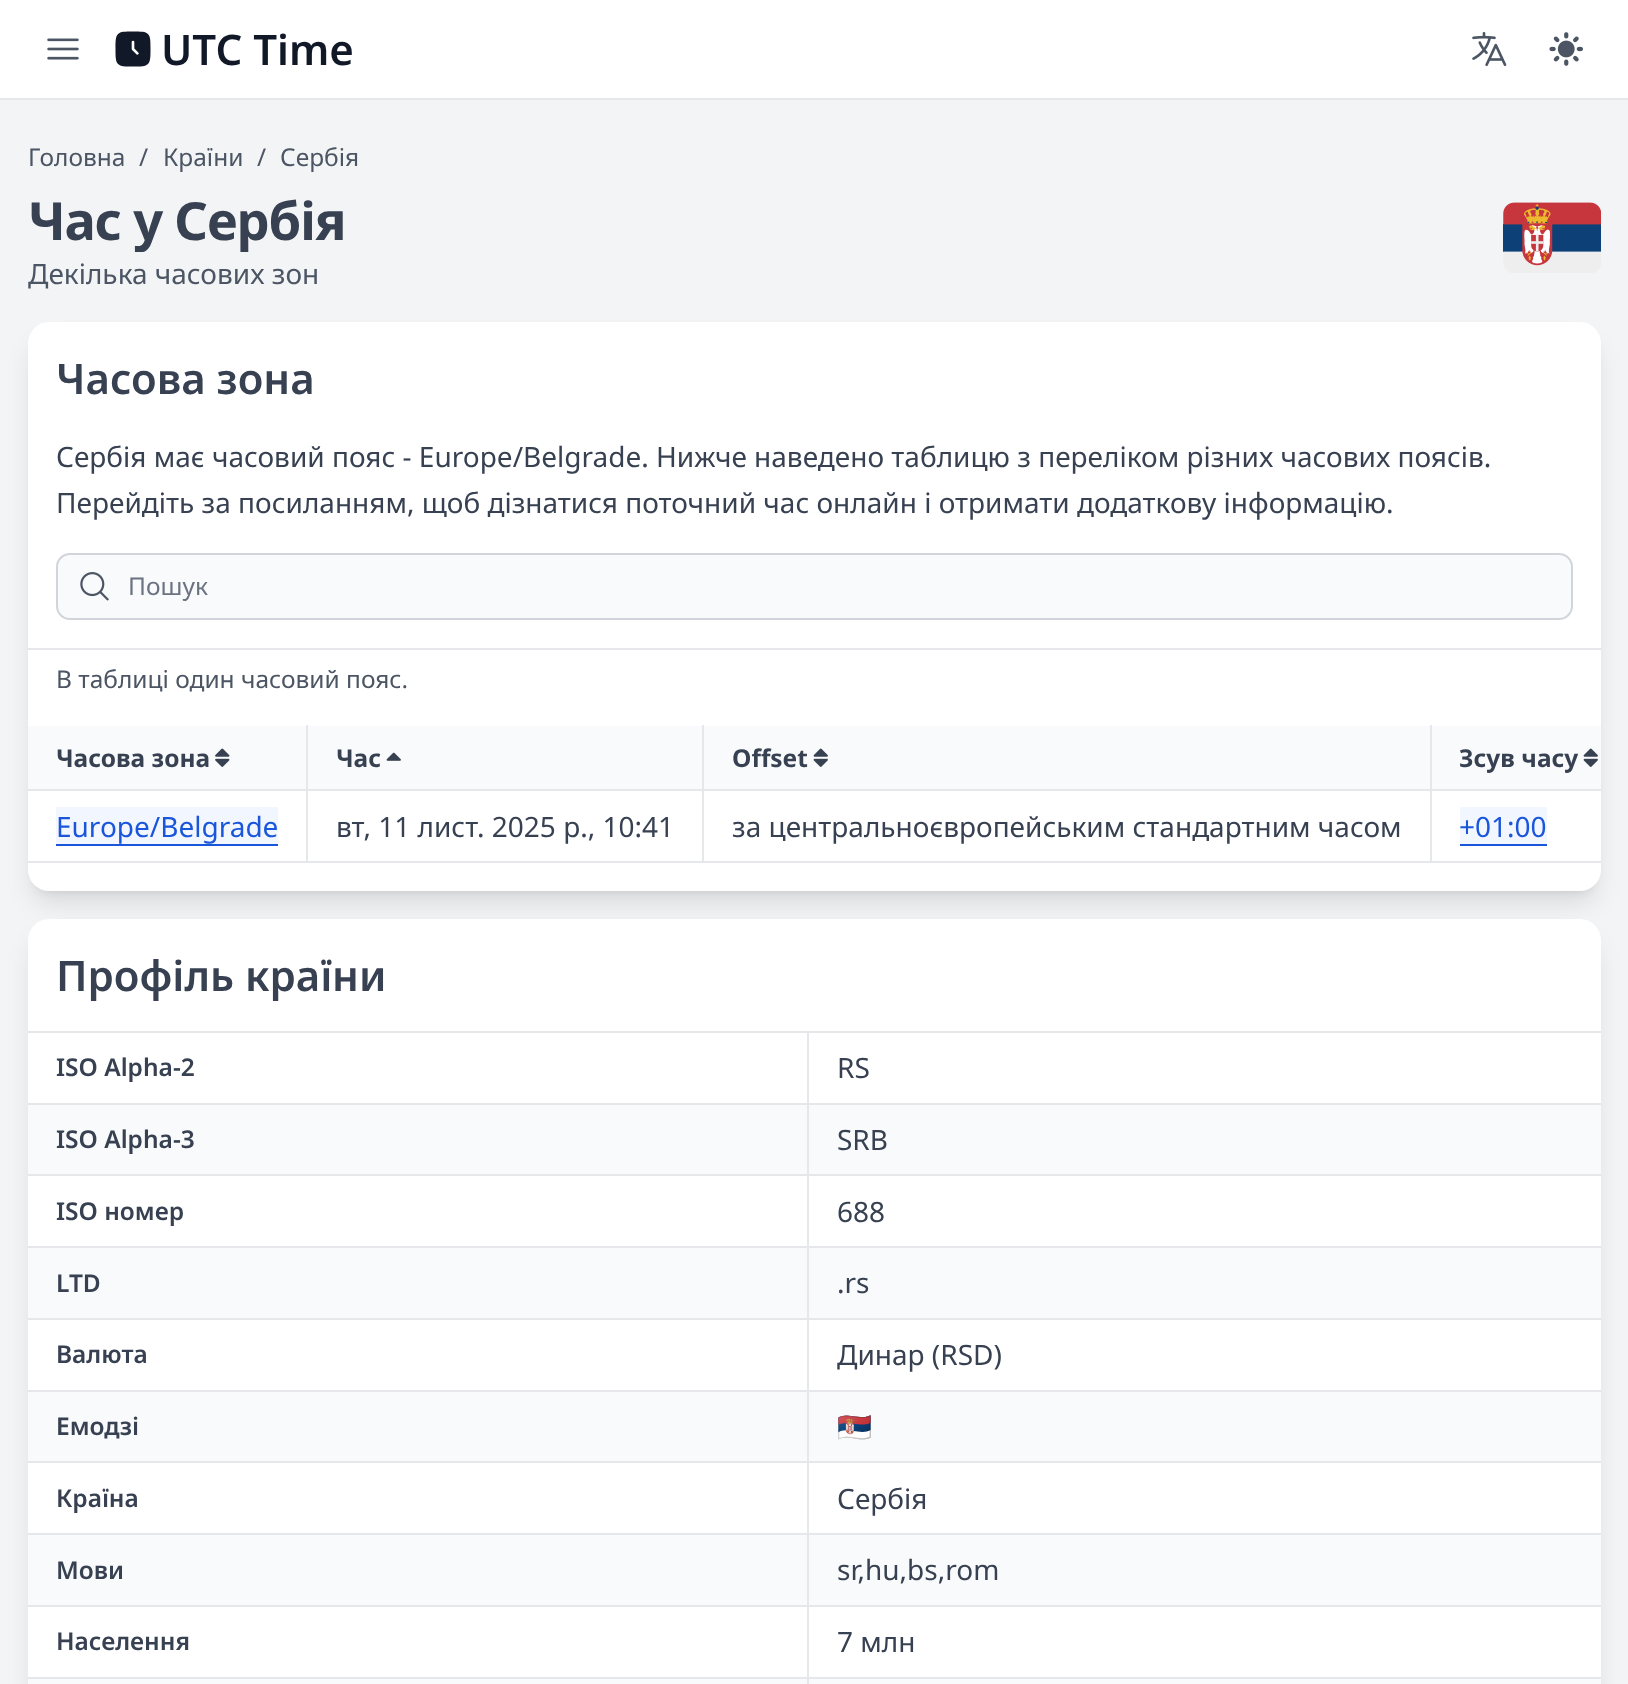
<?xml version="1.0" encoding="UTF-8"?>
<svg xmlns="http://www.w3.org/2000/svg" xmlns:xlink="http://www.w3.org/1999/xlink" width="1628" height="1684">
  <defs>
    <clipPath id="clip1"><rect x="28" y="189" width="317" height="63" /></clipPath>
  </defs>
  <rect width="100%" height="100%" fill="#f3f4f6" />
  <rect width="1628" height="98" fill="#ffffff" />
  <rect y="98" width="1628" height="2" fill="#e5e7eb" />
  <image x="47" y="38" width="32" height="22" xlink:href="image1.png" />
  <image x="115" y="31" width="36" height="36" xlink:href="image2.png" />
  <image x="1472" y="32" width="35" height="34" xlink:href="image3.png" />
  <image x="1549" y="32" width="34" height="34" xlink:href="image4.png" />
  <image x="1503" y="202" width="98" height="71" xlink:href="image5.png" />
  <rect x="35" y="336" width="1559" height="555" rx="14" fill="#000000" fill-opacity="0.1" filter="blur(5px)" />
  <rect x="33" y="345" width="1563" height="558" rx="16" fill="#000000" fill-opacity="0.1" filter="blur(13px)" />
  <rect x="28" y="322" width="1573" height="569" rx="21" fill="#ffffff" />
  <rect x="57" y="554" width="1515" height="65" rx="13" fill="#f9fafb" stroke="#d1d5db" stroke-width="2" />
  <image x="80" y="572" width="29" height="29" xlink:href="image6.png" />
  <rect x="28" y="648" width="1573" height="2" fill="#e5e7eb" />
  <rect x="28" y="726" width="1573" height="63" fill="#f9fafb" />
  <rect x="28" y="789" width="1573" height="2" fill="#e5e7eb" />
  <image x="215" y="748" width="15" height="19" xlink:href="image7.png" />
  <image x="386" y="752" width="15" height="9" xlink:href="image8.png" />
  <image x="813" y="748" width="15" height="19" xlink:href="image9.png" />
  <image x="1583" y="748" width="15" height="19" xlink:href="image9.png" />
  <rect x="28" y="861" width="1573" height="2" fill="#e5e7eb" />
  <rect x="56" y="807" width="222" height="37" fill="#f1f6ff" />
  <rect x="56" y="844" width="222" height="2" fill="#1a56db" />
  <rect x="306" y="725" width="2" height="138" fill="#e5e7eb" />
  <rect x="702" y="725" width="2" height="138" fill="#e5e7eb" />
  <rect x="1430" y="725" width="2" height="138" fill="#e5e7eb" />
  <rect x="1460" y="807" width="87" height="37" fill="#f1f6ff" />
  <rect x="1460" y="844" width="87" height="2" fill="#1a56db" />
  <rect x="33" y="942" width="1563" height="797" rx="16" fill="#000000" fill-opacity="0.1" filter="blur(13px)" />
  <rect x="28" y="919" width="1573" height="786" rx="21" fill="#ffffff" />
  <rect x="28" y="1031" width="1573" height="2" fill="#e5e7eb" />
  <rect x="28" y="1679" width="1573" height="5" fill="#f9fafb" />
  <rect x="28" y="1103" width="1573" height="2" fill="#e5e7eb" />
  <rect x="28" y="1105" width="1573" height="69" fill="#f9fafb" />
  <rect x="28" y="1174" width="1573" height="2" fill="#e5e7eb" />
  <rect x="28" y="1246" width="1573" height="2" fill="#e5e7eb" />
  <rect x="28" y="1248" width="1573" height="70" fill="#f9fafb" />
  <rect x="28" y="1318" width="1573" height="2" fill="#e5e7eb" />
  <rect x="28" y="1390" width="1573" height="2" fill="#e5e7eb" />
  <rect x="28" y="1392" width="1573" height="69" fill="#f9fafb" />
  <rect x="28" y="1461" width="1573" height="2" fill="#e5e7eb" />
  <rect x="28" y="1533" width="1573" height="2" fill="#e5e7eb" />
  <rect x="28" y="1535" width="1573" height="70" fill="#f9fafb" />
  <rect x="28" y="1605" width="1573" height="2" fill="#e5e7eb" />
  <rect x="28" y="1677" width="1573" height="2" fill="#e5e7eb" />
  <rect x="807" y="1031" width="2" height="653" fill="#e5e7eb" />
  <text x="161" y="65" style="font-family: Noto Sans; font-size: 42px; font-weight: 600; fill: #111827">UTC Time</text>
  <text x="28" y="166" style="font-family: Noto Sans; font-size: 24.5px; fill: #4b5563">Головна</text>
  <text x="139" y="166" style="font-family: Noto Sans; font-size: 24.5px; fill: #4b5563">/</text>
  <text x="163" y="166" style="font-family: Noto Sans; font-size: 24.5px; fill: #4b5563">Країни</text>
  <text x="257" y="166" style="font-family: Noto Sans; font-size: 24.5px; fill: #4b5563">/</text>
  <text x="280" y="166" style="font-family: Noto Sans; font-size: 24.5px; fill: #4b5563">Сербія</text>
  <g clip-path="url(#clip1)">
    <text x="28" y="240" style="font-family: Noto Sans; font-size: 52.5px; font-weight: bold; letter-spacing: -1.25px; fill: #374151">Час у Сербія</text>
  </g>
  <text x="28" y="284" style="font-family: Noto Sans; font-size: 28px; fill: #4b5563">Декілька часових зон</text>
  <text x="56" y="394" style="font-family: Noto Sans; font-size: 42px; font-weight: 600; fill: #374151">Часова зона</text>
  <text x="56" y="467" style="font-family: Noto Sans; font-size: 28px; fill: #374151">Сербія має часовий пояс - Europe/Belgrade. Нижче наведено таблицю з переліком різних часових поясів.</text>
  <text x="56" y="513" style="font-family: Noto Sans; font-size: 28px; fill: #374151">Перейдіть за посиланням, щоб дізнатися поточний час онлайн і отримати додаткову інформацію.</text>
  <text x="128" y="595" style="font-family: Noto Sans; font-size: 24.5px; fill: #6b7280">Пошук</text>
  <text x="56" y="688" style="font-family: Noto Sans; font-size: 24.5px; fill: #4b5563">В таблиці один часовий пояс.</text>
  <text x="56" y="767" style="font-family: Noto Sans; font-size: 24.5px; font-weight: bold; fill: #374151">Часова зона</text>
  <text x="336" y="767" style="font-family: Noto Sans; font-size: 24.5px; font-weight: bold; fill: #374151">Час</text>
  <text x="732" y="767" style="font-family: Noto Sans; font-size: 24.5px; font-weight: bold; fill: #374151">Offset</text>
  <text x="1459" y="767" style="font-family: Noto Sans; font-size: 24.5px; font-weight: bold; fill: #374151">Зсув часу</text>
  <text x="56" y="837" style="font-family: Noto Sans; font-size: 28px; fill: #1a56db">Europe/Belgrade</text>
  <text x="336" y="837" style="font-family: Noto Sans; font-size: 28px; fill: #374151">вт, 11 лист. 2025 р., 10:41</text>
  <text x="732" y="837" style="font-family: Noto Sans; font-size: 28px; fill: #374151">за центральноєвропейським стандартним часом</text>
  <text x="1459" y="837" style="font-family: Noto Sans; font-size: 28px; fill: #1a56db">+01:00</text>
  <text x="56" y="991" style="font-family: Noto Sans; font-size: 42px; font-weight: 600; fill: #374151">Профіль країни</text>
  <text x="56" y="1076" style="font-family: Noto Sans; font-size: 24.5px; font-weight: 600; fill: #374151">ISO Alpha-2</text>
  <text x="837" y="1078" style="font-family: Noto Sans; font-size: 28px; fill: #374151">RS</text>
  <text x="56" y="1148" style="font-family: Noto Sans; font-size: 24.5px; font-weight: 600; fill: #374151">ISO Alpha-3</text>
  <text x="837" y="1150" style="font-family: Noto Sans; font-size: 28px; fill: #374151">SRB</text>
  <text x="56" y="1220" style="font-family: Noto Sans; font-size: 24.5px; font-weight: 600; fill: #374151">ISO номер</text>
  <text x="837" y="1222" style="font-family: Noto Sans; font-size: 28px; fill: #374151">688</text>
  <text x="56" y="1292" style="font-family: Noto Sans; font-size: 24.5px; font-weight: 600; fill: #374151">LTD</text>
  <text x="837" y="1293" style="font-family: Noto Sans; font-size: 28px; fill: #374151">.rs</text>
  <text x="56" y="1363" style="font-family: Noto Sans; font-size: 24.5px; font-weight: 600; fill: #374151">Валюта</text>
  <text x="837" y="1365" style="font-family: Noto Sans; font-size: 28px; fill: #374151">Динар (RSD)</text>
  <text x="56" y="1435" style="font-family: Noto Sans; font-size: 24.5px; font-weight: 600; fill: #374151">Емодзі</text>
  <text x="837" y="1437" style="font-family: Noto Color Emoji; font-size: 28px; fill: #374151">🇷🇸</text>
  <text x="56" y="1507" style="font-family: Noto Sans; font-size: 24.5px; font-weight: 600; fill: #374151">Країна</text>
  <text x="837" y="1509" style="font-family: Noto Sans; font-size: 28px; fill: #374151">Сербія</text>
  <text x="56" y="1579" style="font-family: Noto Sans; font-size: 24.5px; font-weight: 600; fill: #374151">Мови</text>
  <text x="837" y="1580" style="font-family: Noto Sans; font-size: 28px; fill: #374151">sr,hu,bs,rom</text>
  <text x="56" y="1650" style="font-family: Noto Sans; font-size: 24.5px; font-weight: 600; fill: #374151">Населення</text>
  <text x="837" y="1652" style="font-family: Noto Sans; font-size: 28px; fill: #374151">7 млн</text>
</svg>
